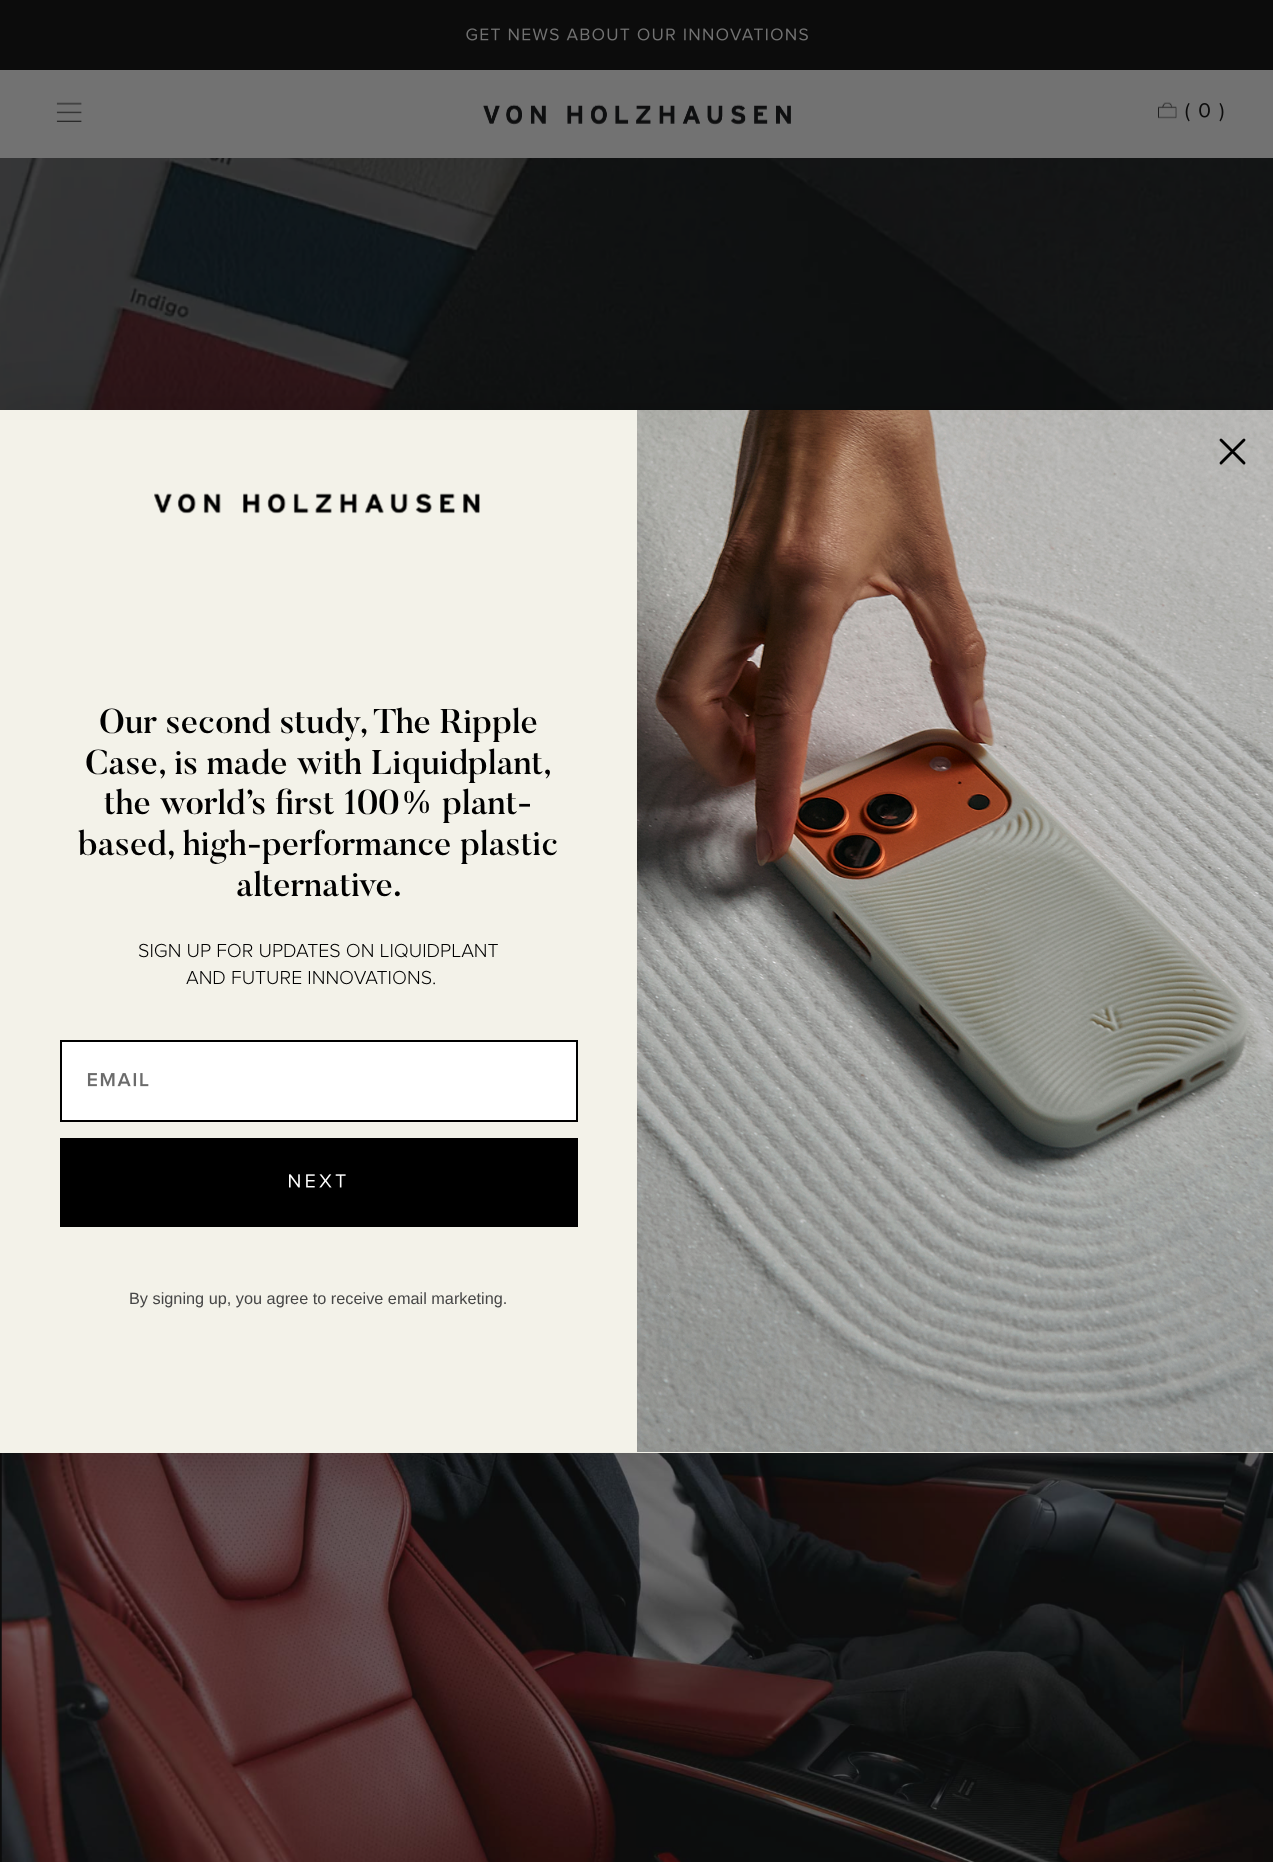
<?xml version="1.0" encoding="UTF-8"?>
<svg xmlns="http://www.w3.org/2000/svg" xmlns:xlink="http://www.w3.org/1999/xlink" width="1273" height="1862">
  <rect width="100%" height="100%" fill="#727272" />
  <rect width="1273" height="70" fill="#0c0c0c" />
  <image x="466" y="28" width="342" height="13" xlink:href="image1.png" />
  <image x="56" y="102" width="26" height="20" xlink:href="image2.png" />
  <image x="483" y="104" width="308" height="21" xlink:href="image3.png" />
  <image x="1158" y="102" width="19" height="17" xlink:href="image4.png" />
  <image x="1185" y="103" width="39" height="19" xlink:href="image5.png" />
  <image x="0" y="158" width="1273" height="252" xlink:href="image6.png" />
  <rect y="1453" width="2" height="409" fill="#0c0c0c" />
  <image x="1" y="1453" width="1272" height="409" xlink:href="image7.png" />
  <rect y="410" width="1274" height="1043" fill="#000000" fill-opacity="0.15" filter="blur(24.5px)" />
  <rect y="410" width="1273" height="1043" fill="#f3f2e9" />
  <image x="637" y="410" width="636" height="1042" xlink:href="image11.png" />
  <path d="M 1221 440 l 23 23 m -23 0 l 23 -23 z" fill="none" stroke="#000000" stroke-width="2.9" stroke-linecap="round" stroke-linejoin="round" />
  <image x="154" y="493" width="326" height="21" xlink:href="image8.png" />
  <rect x="61" y="1041" width="516" height="80" fill="#ffffff" stroke="#000000" stroke-width="2" />
  <image x="87" y="1073" width="62" height="14" xlink:href="image9.png" />
  <rect x="60" y="1138" width="518" height="89" fill="#000000" />
  <image x="289" y="1174" width="57" height="14" xlink:href="image10.png" />
  <text x="99" y="733" style="font-family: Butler; font-size: 34.25px; font-weight: 500; fill: #000000">Our second study, The Ripple</text>
  <text x="85" y="774" style="font-family: Butler; font-size: 34.25px; font-weight: 500; fill: #000000">Case, is made with Liquidplant,</text>
  <text x="104" y="814" style="font-family: Butler; font-size: 34.25px; font-weight: 500; fill: #000000">the world’s first 100% plant-</text>
  <text x="78" y="855" style="font-family: Butler; font-size: 34.25px; font-weight: 500; fill: #000000">based, high-performance plastic</text>
  <text x="236" y="896" style="font-family: Butler; font-size: 34.25px; font-weight: 500; fill: #000000">alternative.</text>
  <text x="138" y="957" style="font-family: Proxima Nova; font-size: 19.6px; font-weight: 300; fill: #000000">SIGN UP FOR UPDATES ON LIQUIDPLANT</text>
  <text x="186" y="984" style="font-family: Proxima Nova; font-size: 19.6px; font-weight: 300; fill: #000000">AND FUTURE INNOVATIONS.</text>
  <text x="129" y="1304" style="font-family: Liberation Sans; font-size: 16.3px; fill: #464646">By signing up, you agree to receive email marketing.</text>
</svg>
